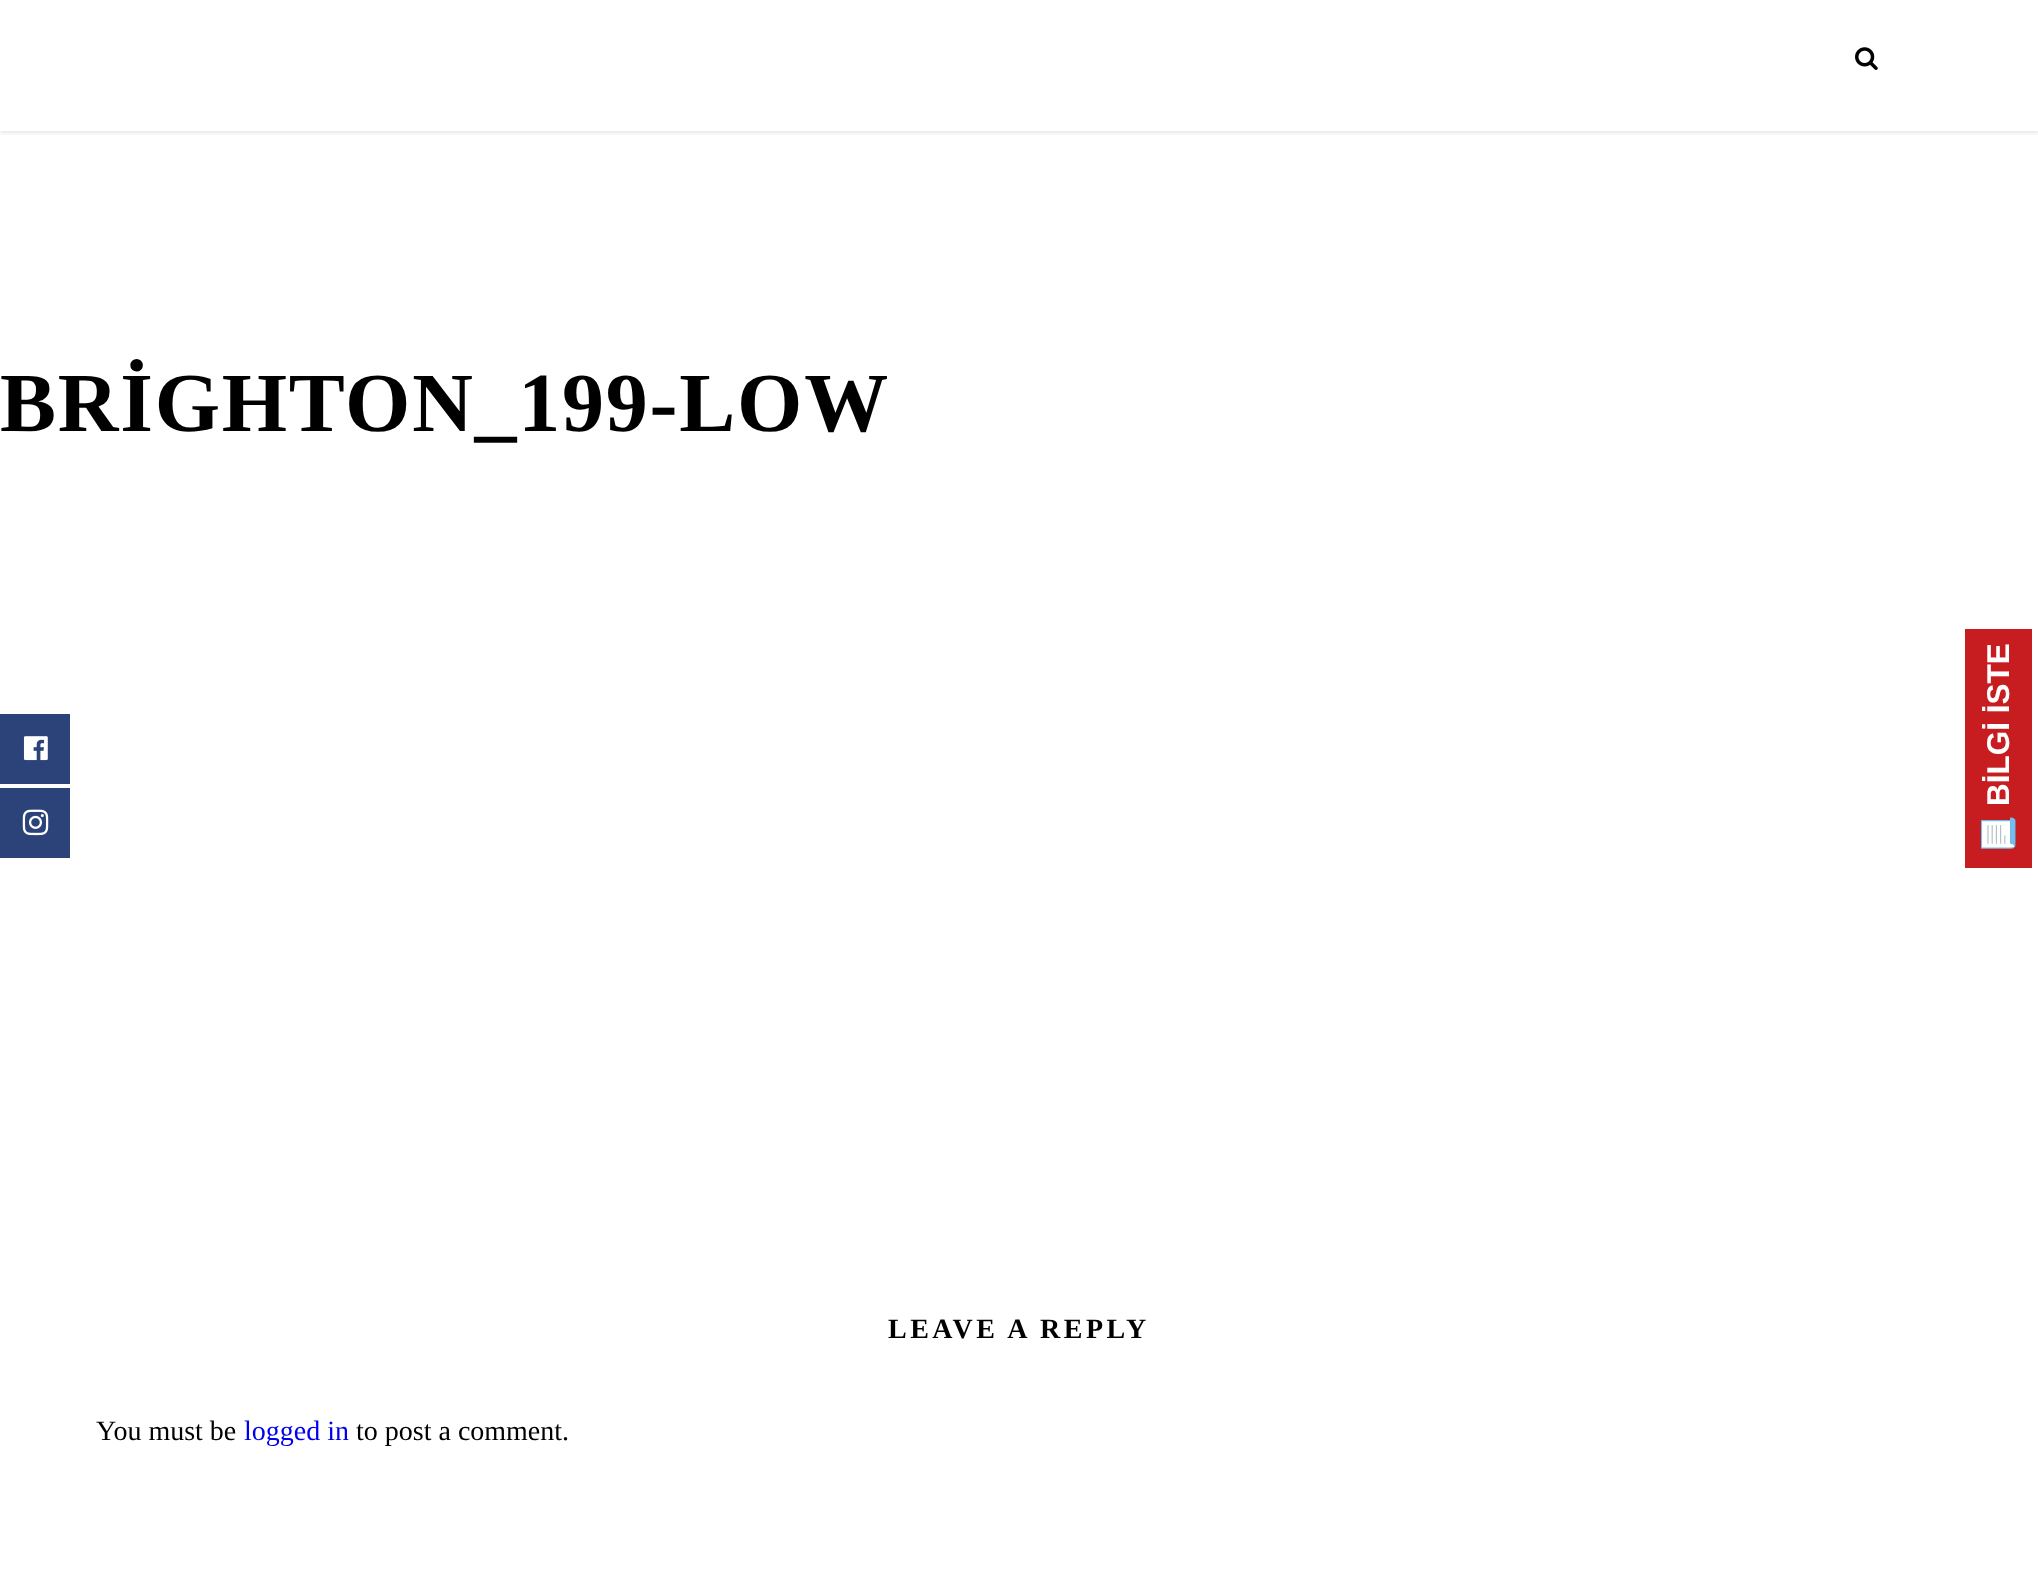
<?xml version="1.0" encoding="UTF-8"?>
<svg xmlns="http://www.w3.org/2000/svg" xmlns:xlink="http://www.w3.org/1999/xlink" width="2038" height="1573">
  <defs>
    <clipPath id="clip1"><rect x="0" y="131" width="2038" height="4" /></clipPath>
  </defs>
  <rect width="100%" height="100%" fill="#ffffff" />
  <g clip-path="url(#clip1)">
    <rect y="2" width="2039" height="131" fill="#000000" fill-opacity="0.1" filter="blur(2px)" />
  </g>
  <image x="1855" y="47" width="23" height="23" xlink:href="image1.png" />
  <rect x="1965" y="629" width="67" height="239" fill="#c71d21" />
  <rect y="714" width="70" height="70" fill="#2b4379" />
  <image x="23" y="736" width="25" height="25" xlink:href="image2.png" />
  <rect y="788" width="70" height="70" fill="#2b4379" />
  <image x="22" y="809" width="27" height="27" xlink:href="image3.png" />
  <text x="0" y="431" style="font-family: Liberation Serif; font-size: 84px; font-weight: bold; letter-spacing: 1.75px; fill: #000000">BRİGHTON_199-LOW</text>
  <text x="888" y="1338" style="font-family: Liberation Serif; font-size: 28px; font-weight: bold; letter-spacing: 3.5px; fill: #000000">LEAVE A REPLY</text>
  <text x="96" y="1440" style="font-family: Liberation Serif; font-size: 28px; fill: #000000">You must be</text>
  <text x="244" y="1440" style="font-family: Liberation Serif; font-size: 28px; fill: #0000ee">logged in</text>
  <text x="356" y="1440" style="font-family: Liberation Serif; font-size: 28px; fill: #000000">to post a comment.</text>
  <text x="2009" y="806" transform="rotate(-90 2009 806)" style="font-family: Liberation Sans; font-size: 31.5px; font-weight: bold; fill: #ffffff">BİLGİ İSTE</text>
  <text x="2009" y="854" transform="rotate(-90 2009 854)" style="font-family: Noto Color Emoji; font-size: 31.5px; font-weight: bold; fill: #ffffff">📃</text>
</svg>
